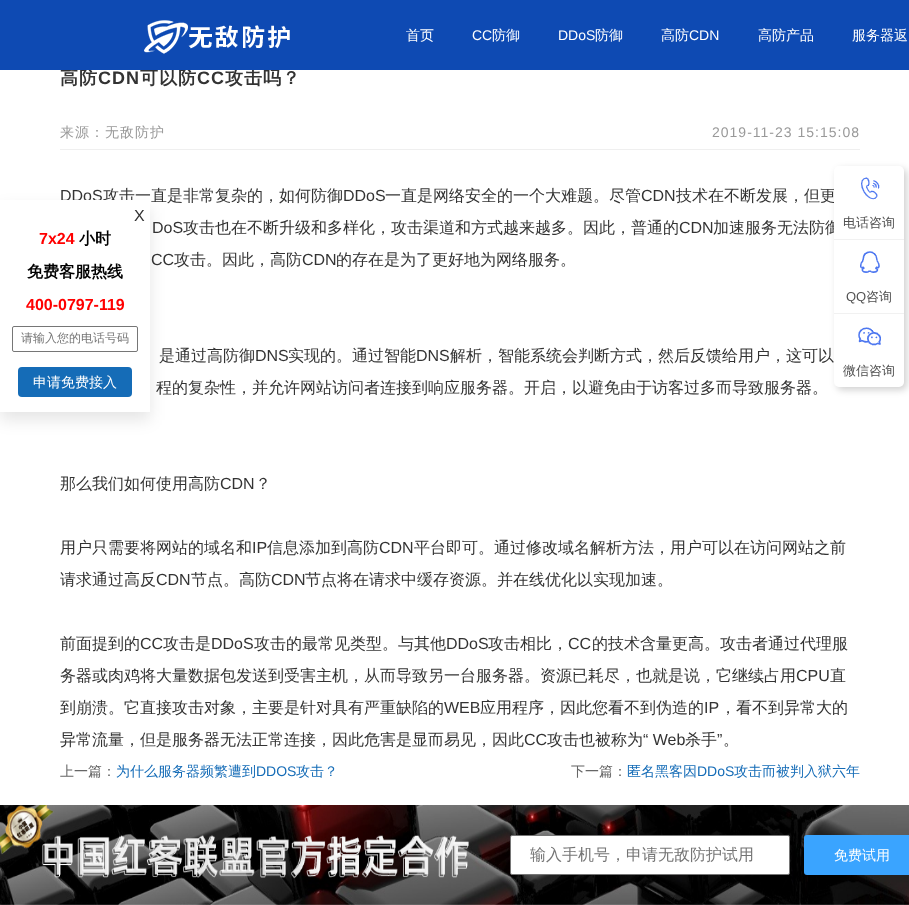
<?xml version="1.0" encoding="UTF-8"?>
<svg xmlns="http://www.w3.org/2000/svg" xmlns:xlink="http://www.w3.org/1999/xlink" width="909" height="905">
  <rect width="100%" height="100%" fill="#ffffff" />
  <rect x="60" y="149" width="800" height="1" fill="#efefef" />
  <rect y="208" width="150" height="212" fill="#000000" fill-opacity="0.1" filter="blur(8px)" />
  <rect x="837" y="169" width="70" height="221" rx="5" fill="#000000" fill-opacity="0.18" filter="blur(3.5px)" />
  <image x="0" y="805" width="909" height="100" xlink:href="image5.png" />
  <rect x="510.5" y="835.5" width="279" height="39" rx="1.5" fill="#ffffff" stroke="#767676" />
  <rect x="804" y="835" width="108" height="40" rx="3" fill="#3aa4ff" />
  <text x="60" y="84" style="font-family: WenQuanYi Zen Hei; font-size: 18px; font-weight: bold; letter-spacing: 1px; fill: #333333">高防</text>
  <text x="98" y="84" style="font-family: Liberation Sans; font-size: 18px; font-weight: bold; letter-spacing: 1px; fill: #333333">CDN</text>
  <text x="140" y="84" style="font-family: WenQuanYi Zen Hei; font-size: 18px; font-weight: bold; letter-spacing: 1px; fill: #333333">可以防</text>
  <text x="197" y="84" style="font-family: Liberation Sans; font-size: 18px; font-weight: bold; letter-spacing: 1px; fill: #333333">CC</text>
  <text x="225" y="84" style="font-family: WenQuanYi Zen Hei; font-size: 18px; font-weight: bold; letter-spacing: 1px; fill: #333333">攻击吗？</text>
  <rect width="909" height="70" fill="#0e4ab3" />
  <image x="144" y="20" width="146" height="34" xlink:href="image1.png" />
  <text x="852" y="40" style="font-family: WenQuanYi Zen Hei; font-size: 14px; font-weight: 500; fill: #ffffff">服务器返</text>
  <text x="758" y="40" style="font-family: WenQuanYi Zen Hei; font-size: 14px; font-weight: 500; fill: #ffffff">高防产品</text>
  <text x="689" y="40" style="font-family: Liberation Sans; font-size: 14px; fill: #ffffff">CDN</text>
  <text x="661" y="40" style="font-family: WenQuanYi Zen Hei; font-size: 14px; font-weight: 500; fill: #ffffff">高防</text>
  <text x="595" y="40" style="font-family: WenQuanYi Zen Hei; font-size: 14px; font-weight: 500; fill: #ffffff">防御</text>
  <text x="558" y="40" style="font-family: Liberation Sans; font-size: 14px; fill: #ffffff">DDoS</text>
  <text x="492" y="40" style="font-family: WenQuanYi Zen Hei; font-size: 14px; font-weight: 500; fill: #ffffff">防御</text>
  <text x="472" y="40" style="font-family: Liberation Sans; font-size: 14px; fill: #ffffff">CC</text>
  <text x="406" y="40" style="font-family: WenQuanYi Zen Hei; font-size: 14px; font-weight: 500; fill: #ffffff">首页</text>
  <text x="60" y="137" style="font-family: WenQuanYi Zen Hei; font-size: 14px; font-weight: 500; letter-spacing: 1px; fill: #999999">来源：无敌防护</text>
  <text x="712" y="137" style="font-family: Liberation Sans; font-size: 14px; letter-spacing: 1px; fill: #999999">2019-11-23 15:15:08</text>
  <text x="60" y="201" style="font-family: Liberation Sans; font-size: 16px; fill: #333333">DDoS</text>
  <text x="103" y="201" style="font-family: WenQuanYi Zen Hei; font-size: 16px; font-weight: 500; fill: #333333">攻击一直是非常复杂的，如何防御</text>
  <text x="343" y="201" style="font-family: Liberation Sans; font-size: 16px; fill: #333333">DDoS</text>
  <text x="385" y="201" style="font-family: WenQuanYi Zen Hei; font-size: 16px; font-weight: 500; fill: #333333">一直是网络安全的一个大难题。尽管</text>
  <text x="641" y="201" style="font-family: Liberation Sans; font-size: 16px; fill: #333333">CDN</text>
  <text x="676" y="201" style="font-family: WenQuanYi Zen Hei; font-size: 16px; font-weight: 500; fill: #333333">技术在不断发展，但更</text>
  <text x="152" y="233" style="font-family: Liberation Sans; font-size: 16px; fill: #333333">DoS</text>
  <text x="183" y="233" style="font-family: WenQuanYi Zen Hei; font-size: 16px; font-weight: 500; fill: #333333">攻击也在不断升级和多样化，攻击渠道和方式越来越多。因此，普通的</text>
  <text x="679" y="233" style="font-family: Liberation Sans; font-size: 16px; fill: #333333">CDN</text>
  <text x="713" y="233" style="font-family: WenQuanYi Zen Hei; font-size: 16px; font-weight: 500; fill: #333333">加速服务无法防御</text>
  <text x="151" y="265" style="font-family: Liberation Sans; font-size: 16px; fill: #333333">CC</text>
  <text x="174" y="265" style="font-family: WenQuanYi Zen Hei; font-size: 16px; font-weight: 500; fill: #333333">攻击。因此，高防</text>
  <text x="302" y="265" style="font-family: Liberation Sans; font-size: 16px; fill: #333333">CDN</text>
  <text x="336" y="265" style="font-family: WenQuanYi Zen Hei; font-size: 16px; font-weight: 500; fill: #333333">的存在是为了更好地为网络服务。</text>
  <text x="159" y="361" style="font-family: WenQuanYi Zen Hei; font-size: 16px; font-weight: 500; fill: #333333">是通过高防御</text>
  <text x="255" y="361" style="font-family: Liberation Sans; font-size: 16px; fill: #333333">DNS</text>
  <text x="288" y="361" style="font-family: WenQuanYi Zen Hei; font-size: 16px; font-weight: 500; fill: #333333">实现的。通过智能</text>
  <text x="416" y="361" style="font-family: Liberation Sans; font-size: 16px; fill: #333333">DNS</text>
  <text x="450" y="361" style="font-family: WenQuanYi Zen Hei; font-size: 16px; font-weight: 500; fill: #333333">解析，智能系统会判断方式，然后反馈给用户，这可以</text>
  <text x="156" y="393" style="font-family: WenQuanYi Zen Hei; font-size: 16px; font-weight: 500; fill: #333333">程的复杂性，并允许网站访问者连接到响应服务器。开启，以避免由于访客过多而导致服务器。</text>
  <text x="60" y="489" style="font-family: WenQuanYi Zen Hei; font-size: 16px; font-weight: 500; fill: #333333">那么我们如何使用高防</text>
  <text x="220" y="489" style="font-family: Liberation Sans; font-size: 16px; fill: #333333">CDN</text>
  <text x="255" y="489" style="font-family: WenQuanYi Zen Hei; font-size: 16px; font-weight: 500; fill: #333333">？</text>
  <text x="60" y="553" style="font-family: WenQuanYi Zen Hei; font-size: 16px; font-weight: 500; fill: #333333">用户只需要将网站的域名和</text>
  <text x="252" y="553" style="font-family: Liberation Sans; font-size: 16px; fill: #333333">IP</text>
  <text x="267" y="553" style="font-family: WenQuanYi Zen Hei; font-size: 16px; font-weight: 500; fill: #333333">信息添加到高防</text>
  <text x="379" y="553" style="font-family: Liberation Sans; font-size: 16px; fill: #333333">CDN</text>
  <text x="414" y="553" style="font-family: WenQuanYi Zen Hei; font-size: 16px; font-weight: 500; fill: #333333">平台即可。通过修改域名解析方法，用户可以在访问网站之前</text>
  <text x="60" y="585" style="font-family: WenQuanYi Zen Hei; font-size: 16px; font-weight: 500; fill: #333333">请求通过高反</text>
  <text x="156" y="585" style="font-family: Liberation Sans; font-size: 16px; fill: #333333">CDN</text>
  <text x="191" y="585" style="font-family: WenQuanYi Zen Hei; font-size: 16px; font-weight: 500; fill: #333333">节点。高防</text>
  <text x="271" y="585" style="font-family: Liberation Sans; font-size: 16px; fill: #333333">CDN</text>
  <text x="305" y="585" style="font-family: WenQuanYi Zen Hei; font-size: 16px; font-weight: 500; fill: #333333">节点将在请求中缓存资源。并在线优化以实现加速。</text>
  <text x="60" y="649" style="font-family: WenQuanYi Zen Hei; font-size: 16px; font-weight: 500; fill: #333333">前面提到的</text>
  <text x="140" y="649" style="font-family: Liberation Sans; font-size: 16px; fill: #333333">CC</text>
  <text x="163" y="649" style="font-family: WenQuanYi Zen Hei; font-size: 16px; font-weight: 500; fill: #333333">攻击是</text>
  <text x="211" y="649" style="font-family: Liberation Sans; font-size: 16px; fill: #333333">DDoS</text>
  <text x="254" y="649" style="font-family: WenQuanYi Zen Hei; font-size: 16px; font-weight: 500; fill: #333333">攻击的最常见类型。与其他</text>
  <text x="446" y="649" style="font-family: Liberation Sans; font-size: 16px; fill: #333333">DDoS</text>
  <text x="488" y="649" style="font-family: WenQuanYi Zen Hei; font-size: 16px; font-weight: 500; fill: #333333">攻击相比，</text>
  <text x="568" y="649" style="font-family: Liberation Sans; font-size: 16px; fill: #333333">CC</text>
  <text x="592" y="649" style="font-family: WenQuanYi Zen Hei; font-size: 16px; font-weight: 500; fill: #333333">的技术含量更高。攻击者通过代理服</text>
  <text x="60" y="681" style="font-family: WenQuanYi Zen Hei; font-size: 16px; font-weight: 500; fill: #333333">务器或肉鸡将大量数据包发送到受害主机，从而导致另一台服务器。资源已耗尽，也就是说，它继续占用</text>
  <text x="796" y="681" style="font-family: Liberation Sans; font-size: 16px; fill: #333333">CPU</text>
  <text x="830" y="681" style="font-family: WenQuanYi Zen Hei; font-size: 16px; font-weight: 500; fill: #333333">直</text>
  <text x="60" y="713" style="font-family: WenQuanYi Zen Hei; font-size: 16px; font-weight: 500; fill: #333333">到崩溃。它直接攻击对象，主要是针对具有严重缺陷的</text>
  <text x="444" y="713" style="font-family: Liberation Sans; font-size: 16px; fill: #333333">WEB</text>
  <text x="480" y="713" style="font-family: WenQuanYi Zen Hei; font-size: 16px; font-weight: 500; fill: #333333">应用程序，因此您看不到伪造的</text>
  <text x="704" y="713" style="font-family: Liberation Sans; font-size: 16px; fill: #333333">IP</text>
  <text x="720" y="713" style="font-family: WenQuanYi Zen Hei; font-size: 16px; font-weight: 500; fill: #333333">，看不到异常大的</text>
  <text x="60" y="745" style="font-family: WenQuanYi Zen Hei; font-size: 16px; font-weight: 500; fill: #333333">异常流量，但是服务器无法正常连接，因此危害是显而易见，因此</text>
  <text x="524" y="745" style="font-family: Liberation Sans; font-size: 16px; fill: #333333">CC</text>
  <text x="547" y="745" style="font-family: WenQuanYi Zen Hei; font-size: 16px; font-weight: 500; fill: #333333">攻击也被称为</text>
  <text x="643" y="745" style="font-family: Liberation Sans; font-size: 16px; fill: #333333">“ Web</text>
  <text x="685" y="745" style="font-family: WenQuanYi Zen Hei; font-size: 16px; font-weight: 500; fill: #333333">杀手</text>
  <text x="717" y="745" style="font-family: Liberation Sans; font-size: 16px; fill: #333333">”</text>
  <text x="723" y="745" style="font-family: WenQuanYi Zen Hei; font-size: 16px; font-weight: 500; fill: #333333">。</text>
  <text x="60" y="776" style="font-family: WenQuanYi Zen Hei; font-size: 14px; font-weight: 500; fill: #666666">上一篇：</text>
  <text x="116" y="776" style="font-family: WenQuanYi Zen Hei; font-size: 14px; font-weight: 500; fill: #156cb7">为什么服务器频繁遭到</text>
  <text x="256" y="776" style="font-family: Liberation Sans; font-size: 14px; fill: #156cb7">DDOS</text>
  <text x="296" y="776" style="font-family: WenQuanYi Zen Hei; font-size: 14px; font-weight: 500; fill: #156cb7">攻击？</text>
  <text x="571" y="776" style="font-family: WenQuanYi Zen Hei; font-size: 14px; font-weight: 500; fill: #666666">下一篇：</text>
  <text x="627" y="776" style="font-family: WenQuanYi Zen Hei; font-size: 14px; font-weight: 500; fill: #156cb7">匿名黑客因</text>
  <text x="697" y="776" style="font-family: Liberation Sans; font-size: 14px; fill: #156cb7">DDoS</text>
  <text x="734" y="776" style="font-family: WenQuanYi Zen Hei; font-size: 14px; font-weight: 500; fill: #156cb7">攻击而被判入狱六年</text>
  <rect y="200" width="150" height="212" fill="#ffffff" />
  <text x="134" y="221" style="font-family: Liberation Sans; font-size: 16px; fill: #333333">X</text>
  <text x="39" y="244" style="font-family: Liberation Sans; font-size: 16px; font-weight: bold; fill: #ff0000">7x24</text>
  <text x="79" y="244" style="font-family: WenQuanYi Zen Hei; font-size: 16px; font-weight: bold; fill: #000000">小时</text>
  <text x="27" y="277" style="font-family: WenQuanYi Zen Hei; font-size: 16px; font-weight: bold; fill: #000000">免费客服热线</text>
  <text x="26" y="310" style="font-family: Liberation Sans; font-size: 16px; font-weight: bold; fill: #ff0000">400-0797-119</text>
  <rect x="12.5" y="326.5" width="125" height="25" rx="1.5" fill="none" stroke="#767676" />
  <text x="21" y="342" style="font-family: WenQuanYi Zen Hei; font-size: 12px; font-weight: 500; fill: #757575">请输入您的电话号码</text>
  <rect x="18" y="367" width="114" height="30" rx="4" fill="#156cb7" />
  <text x="33" y="387" style="font-family: WenQuanYi Zen Hei; font-size: 14px; font-weight: 500; fill: #ffffff">申请免费接入</text>
  <rect x="834" y="166" width="70" height="221" rx="5" fill="#ffffff" />
  <image x="861" y="177" width="19" height="23" xlink:href="image2.png" />
  <text x="843" y="227" style="font-family: WenQuanYi Zen Hei; font-size: 13px; font-weight: 500; fill: #505050">电话咨询</text>
  <rect x="834" y="239" width="70" height="1" fill="#f1f1f1" />
  <image x="860" y="251" width="20" height="22" xlink:href="image3.png" />
  <text x="846" y="301" style="font-family: Liberation Sans; font-size: 13px; fill: #505050">QQ</text>
  <text x="866" y="301" style="font-family: WenQuanYi Zen Hei; font-size: 13px; font-weight: 500; fill: #505050">咨询</text>
  <rect x="834" y="313" width="70" height="1" fill="#f1f1f1" />
  <image x="858" y="327" width="23" height="19" xlink:href="image4.png" />
  <text x="843" y="375" style="font-family: WenQuanYi Zen Hei; font-size: 13px; font-weight: 500; fill: #505050">微信咨询</text>
  <text x="530" y="860" style="font-family: WenQuanYi Zen Hei; font-size: 16px; font-weight: 500; fill: #757575">输入手机号，申请无敌防护试用</text>
  <text x="834" y="860" style="font-family: WenQuanYi Zen Hei; font-size: 14px; font-weight: 500; fill: #ffffff">免费试用</text>
</svg>
